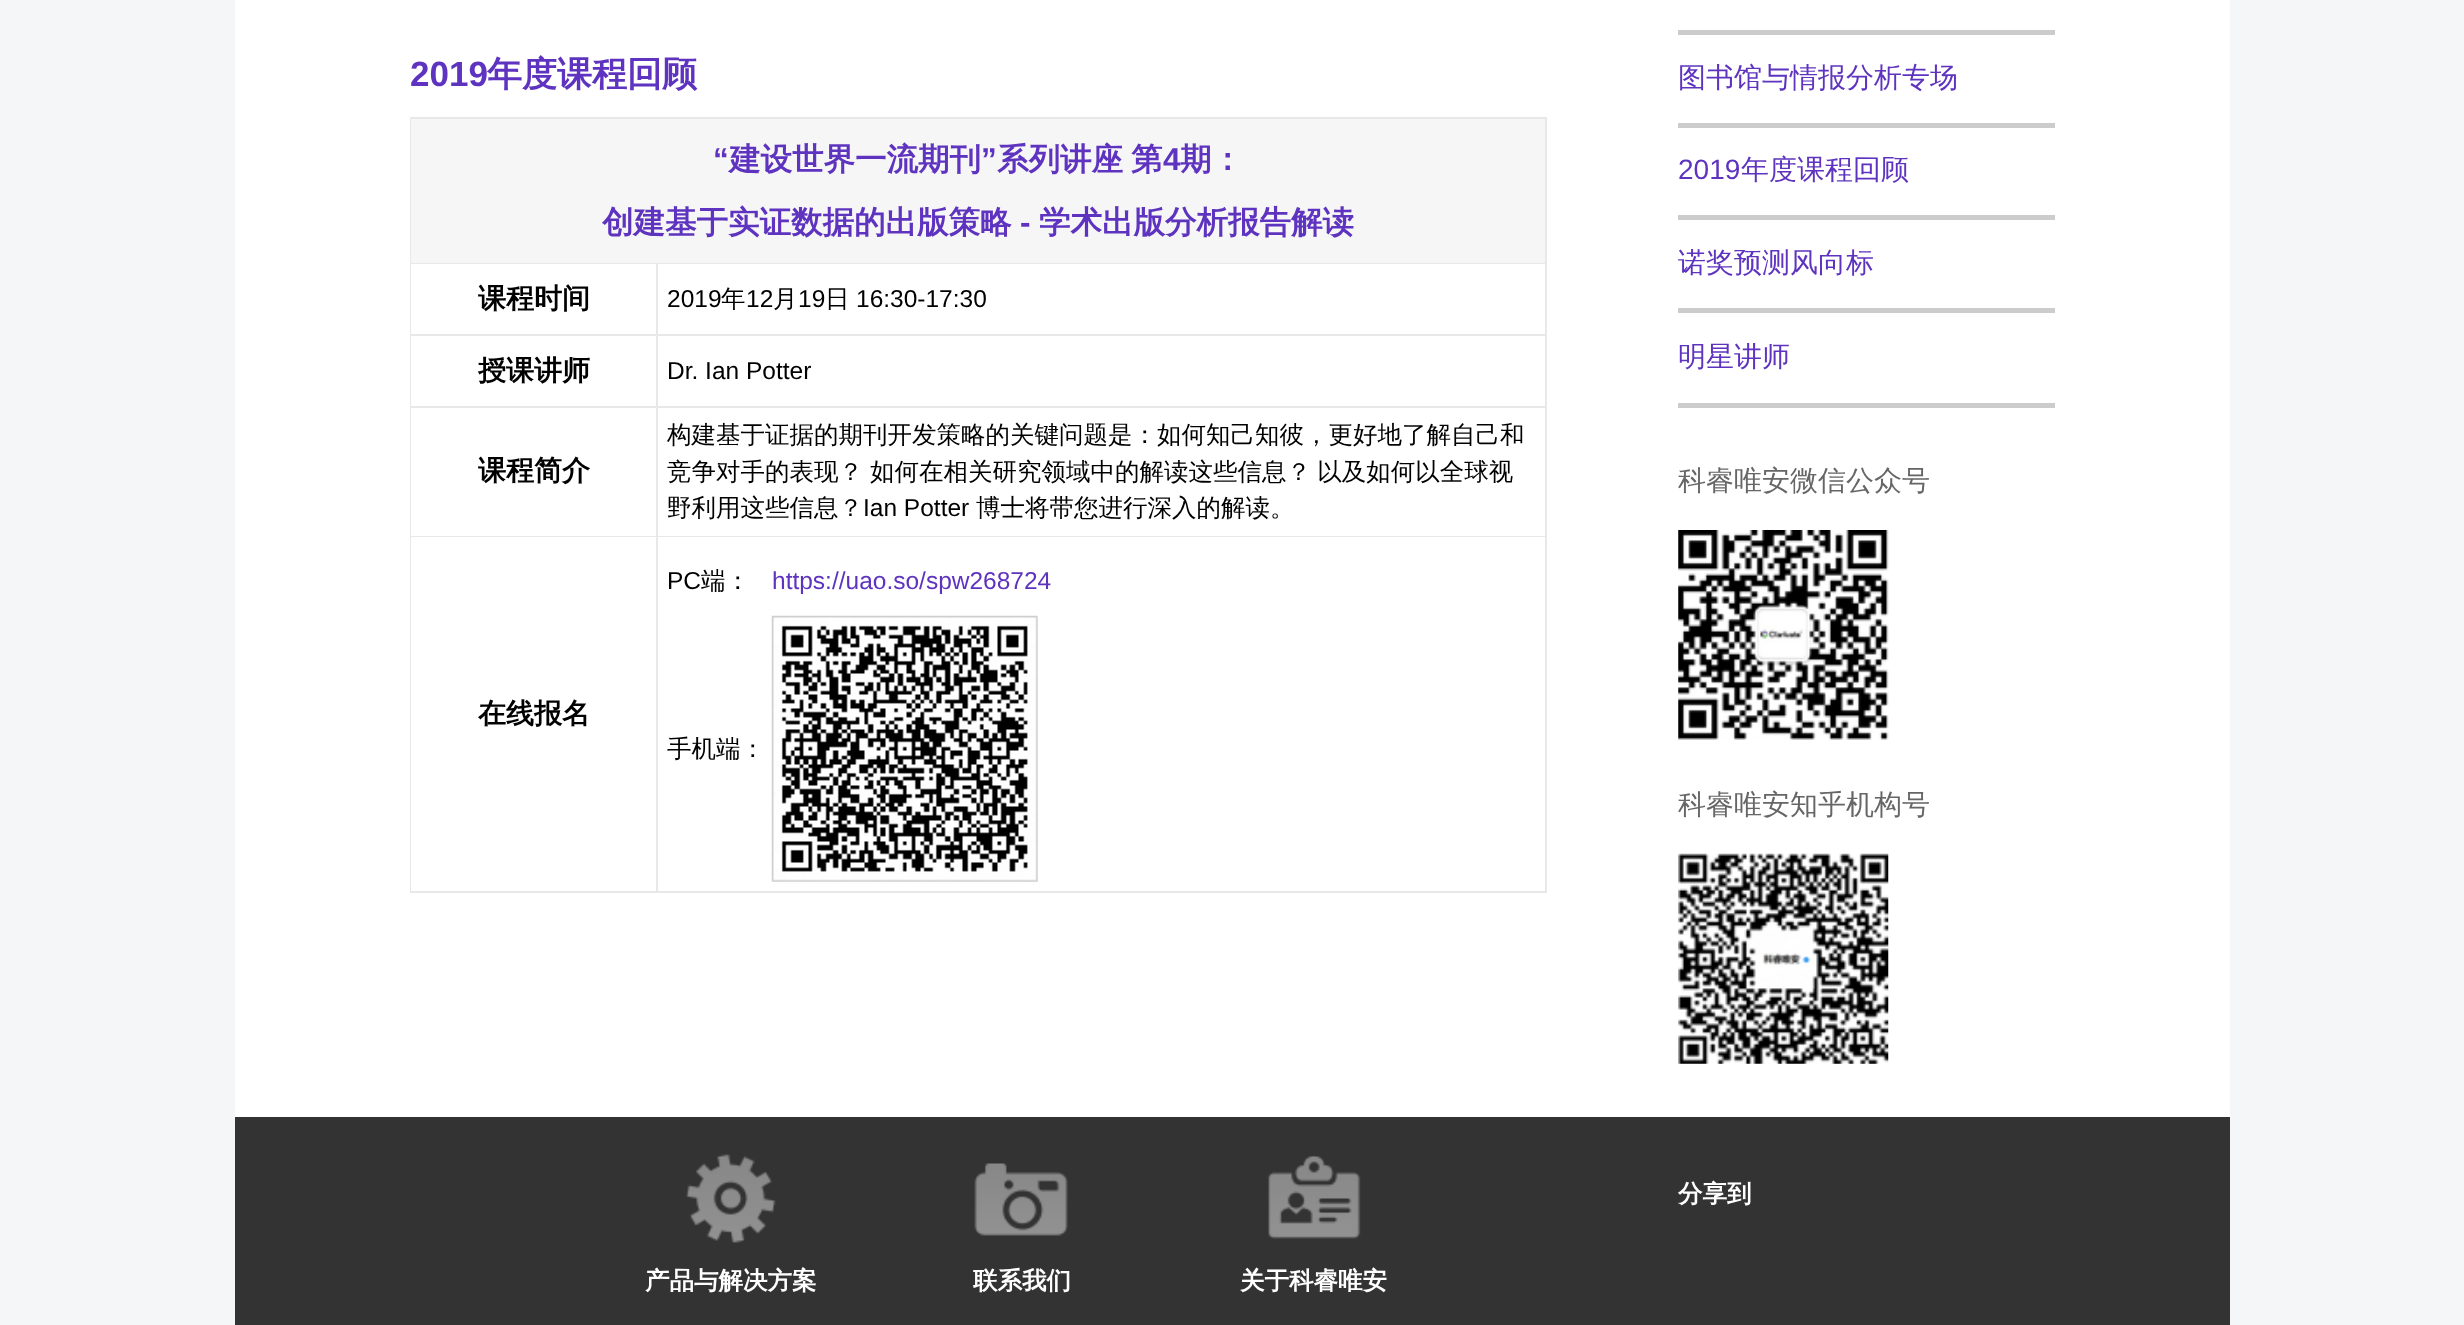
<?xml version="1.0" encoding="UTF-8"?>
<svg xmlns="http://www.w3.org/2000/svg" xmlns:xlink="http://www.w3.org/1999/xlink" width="2464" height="1325">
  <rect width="100%" height="100%" fill="#f5f6f7" />
  <rect x="235" width="1995" height="1117" fill="#ffffff" />
  <rect x="410" y="117" width="1137" height="776" fill="#e8e8e8" />
  <rect x="411" y="119" width="1134" height="144" fill="#f6f6f6" />
  <rect x="411" y="264" width="245" height="70" fill="#ffffff" />
  <rect x="658" y="264" width="887" height="70" fill="#ffffff" />
  <rect x="411" y="336" width="245" height="70" fill="#ffffff" />
  <rect x="658" y="336" width="887" height="70" fill="#ffffff" />
  <rect x="411" y="408" width="245" height="128" fill="#ffffff" />
  <rect x="658" y="408" width="887" height="128" fill="#ffffff" />
  <rect x="411" y="537" width="245" height="354" fill="#ffffff" />
  <rect x="658" y="537" width="887" height="354" fill="#ffffff" />
  <image x="771" y="615" width="267" height="267" xlink:href="image1.png" />
  <rect x="1678" y="30" width="377" height="5" fill="#cccccc" />
  <rect x="1678" y="123" width="377" height="5" fill="#cccccc" />
  <rect x="1678" y="215" width="377" height="5" fill="#cccccc" />
  <rect x="1678" y="308" width="377" height="5" fill="#cccccc" />
  <rect x="1678" y="403" width="377" height="5" fill="#cccccc" />
  <image x="1678" y="530" width="211" height="210" xlink:href="image2.png" />
  <image x="1678" y="853" width="211" height="211" xlink:href="image3.png" />
  <rect x="235" y="1117" width="1995" height="208" fill="#333333" />
  <image x="686" y="1154" width="90" height="89" xlink:href="image4.png" />
  <image x="974" y="1163" width="94" height="73" xlink:href="image5.png" />
  <image x="1268" y="1155" width="93" height="84" xlink:href="image6.png" />
  <text x="410" y="86" style="font-family: Liberation Sans; font-size: 35px; font-weight: bold; fill: #5e33bf">2019</text>
  <text x="487" y="86" style="font-family: WenQuanYi Zen Hei; font-size: 35px; font-weight: bold; fill: #5e33bf">年度课程回顾</text>
  <text x="713" y="170" style="font-family: Liberation Sans; font-size: 31.5px; font-weight: bold; fill: #5e33bf">“</text>
  <text x="729" y="170" style="font-family: WenQuanYi Zen Hei; font-size: 31.5px; font-weight: bold; fill: #5e33bf">建设世界一流期刊</text>
  <text x="981" y="170" style="font-family: Liberation Sans; font-size: 31.5px; font-weight: bold; fill: #5e33bf">”</text>
  <text x="997" y="170" style="font-family: WenQuanYi Zen Hei; font-size: 31.5px; font-weight: bold; fill: #5e33bf">系列讲座</text>
  <text x="1131" y="170" style="font-family: WenQuanYi Zen Hei; font-size: 31.5px; font-weight: bold; fill: #5e33bf">第</text>
  <text x="1163" y="170" style="font-family: Liberation Sans; font-size: 31.5px; font-weight: bold; fill: #5e33bf">4</text>
  <text x="1180" y="170" style="font-family: WenQuanYi Zen Hei; font-size: 31.5px; font-weight: bold; fill: #5e33bf">期：</text>
  <text x="602" y="233" style="font-family: WenQuanYi Zen Hei; font-size: 31.5px; font-weight: bold; fill: #5e33bf">创建基于实证数据的出版策略</text>
  <text x="1020" y="233" style="font-family: Liberation Sans; font-size: 31.5px; font-weight: bold; fill: #5e33bf">-</text>
  <text x="1039" y="233" style="font-family: WenQuanYi Zen Hei; font-size: 31.5px; font-weight: bold; fill: #5e33bf">学术出版分析报告解读</text>
  <text x="478" y="308" style="font-family: WenQuanYi Zen Hei; font-size: 28px; font-weight: bold; fill: #000000">课程时间</text>
  <text x="667" y="307" style="font-family: Liberation Sans; font-size: 24.5px; fill: #000000">2019</text>
  <text x="721" y="307" style="font-family: WenQuanYi Zen Hei; font-size: 24.5px; font-weight: 500; fill: #000000">年</text>
  <text x="746" y="307" style="font-family: Liberation Sans; font-size: 24.5px; fill: #000000">12</text>
  <text x="773" y="307" style="font-family: WenQuanYi Zen Hei; font-size: 24.5px; font-weight: 500; fill: #000000">月</text>
  <text x="798" y="307" style="font-family: Liberation Sans; font-size: 24.5px; fill: #000000">19</text>
  <text x="825" y="307" style="font-family: WenQuanYi Zen Hei; font-size: 24.5px; font-weight: 500; fill: #000000">日</text>
  <text x="856" y="307" style="font-family: Liberation Sans; font-size: 24.5px; fill: #000000">16:30-17:30</text>
  <text x="478" y="380" style="font-family: WenQuanYi Zen Hei; font-size: 28px; font-weight: bold; fill: #000000">授课讲师</text>
  <text x="667" y="379" style="font-family: Liberation Sans; font-size: 24.5px; fill: #000000">Dr. Ian Potter</text>
  <text x="478" y="480" style="font-family: WenQuanYi Zen Hei; font-size: 28px; font-weight: bold; fill: #000000">课程简介</text>
  <text x="667" y="443" style="font-family: WenQuanYi Zen Hei; font-size: 24.5px; font-weight: 500; fill: #000000">构建基于证据的期刊开发策略的关键问题是：如何知己知彼，更好地了解自己和</text>
  <text x="667" y="480" style="font-family: WenQuanYi Zen Hei; font-size: 24.5px; font-weight: 500; fill: #000000">竞争对手的表现？</text>
  <text x="870" y="480" word-spacing="-1" style="font-family: WenQuanYi Zen Hei; font-size: 24.5px; font-weight: 500; fill: #000000">如何在相关研究领域中的解读这些信息？ 以及如何以全球视</text>
  <text x="667" y="516" style="font-family: WenQuanYi Zen Hei; font-size: 24.5px; font-weight: 500; fill: #000000">野利用这些信息？</text>
  <text x="863" y="516" style="font-family: Liberation Sans; font-size: 24.5px; fill: #000000">Ian Potter</text>
  <text x="976" y="516" style="font-family: WenQuanYi Zen Hei; font-size: 24.5px; font-weight: 500; fill: #000000">博士将带您进行深入的解读。</text>
  <text x="478" y="723" style="font-family: WenQuanYi Zen Hei; font-size: 28px; font-weight: bold; fill: #000000">在线报名</text>
  <text x="667" y="589" style="font-family: Liberation Sans; font-size: 24.5px; fill: #000000">PC</text>
  <text x="701" y="589" style="font-family: WenQuanYi Zen Hei; font-size: 24.5px; font-weight: 500; fill: #000000">端：</text>
  <text x="772" y="589" style="font-family: Liberation Sans; font-size: 24.5px; fill: #5e33bf">https://uao.so/spw268724</text>
  <text x="667" y="757" style="font-family: WenQuanYi Zen Hei; font-size: 24.5px; font-weight: 500; fill: #000000">手机端：</text>
  <text x="1678" y="87" style="font-family: WenQuanYi Zen Hei; font-size: 28px; font-weight: 500; fill: #5e33bf">图书馆与情报分析专场</text>
  <text x="1678" y="179" style="font-family: Liberation Sans; font-size: 28px; fill: #5e33bf">2019</text>
  <text x="1741" y="179" style="font-family: WenQuanYi Zen Hei; font-size: 28px; font-weight: 500; fill: #5e33bf">年度课程回顾</text>
  <text x="1678" y="272" style="font-family: WenQuanYi Zen Hei; font-size: 28px; font-weight: 500; fill: #5e33bf">诺奖预测风向标</text>
  <text x="1678" y="366" style="font-family: WenQuanYi Zen Hei; font-size: 28px; font-weight: 500; fill: #5e33bf">明星讲师</text>
  <text x="1678" y="490" style="font-family: WenQuanYi Zen Hei; font-size: 28px; font-weight: 500; fill: #666666">科睿唯安微信公众号</text>
  <text x="1678" y="814" style="font-family: WenQuanYi Zen Hei; font-size: 28px; font-weight: 500; fill: #666666">科睿唯安知乎机构号</text>
  <text x="1678" y="1202" style="font-family: WenQuanYi Zen Hei; font-size: 24.5px; font-weight: bold; fill: #ffffff">分享到</text>
  <text x="645" y="1289" style="font-family: WenQuanYi Zen Hei; font-size: 24.5px; font-weight: bold; fill: #ffffff">产品与解决方案</text>
  <text x="973" y="1289" style="font-family: WenQuanYi Zen Hei; font-size: 24.5px; font-weight: bold; fill: #ffffff">联系我们</text>
  <text x="1240" y="1289" style="font-family: WenQuanYi Zen Hei; font-size: 24.5px; font-weight: bold; fill: #ffffff">关于科睿唯安</text>
</svg>
